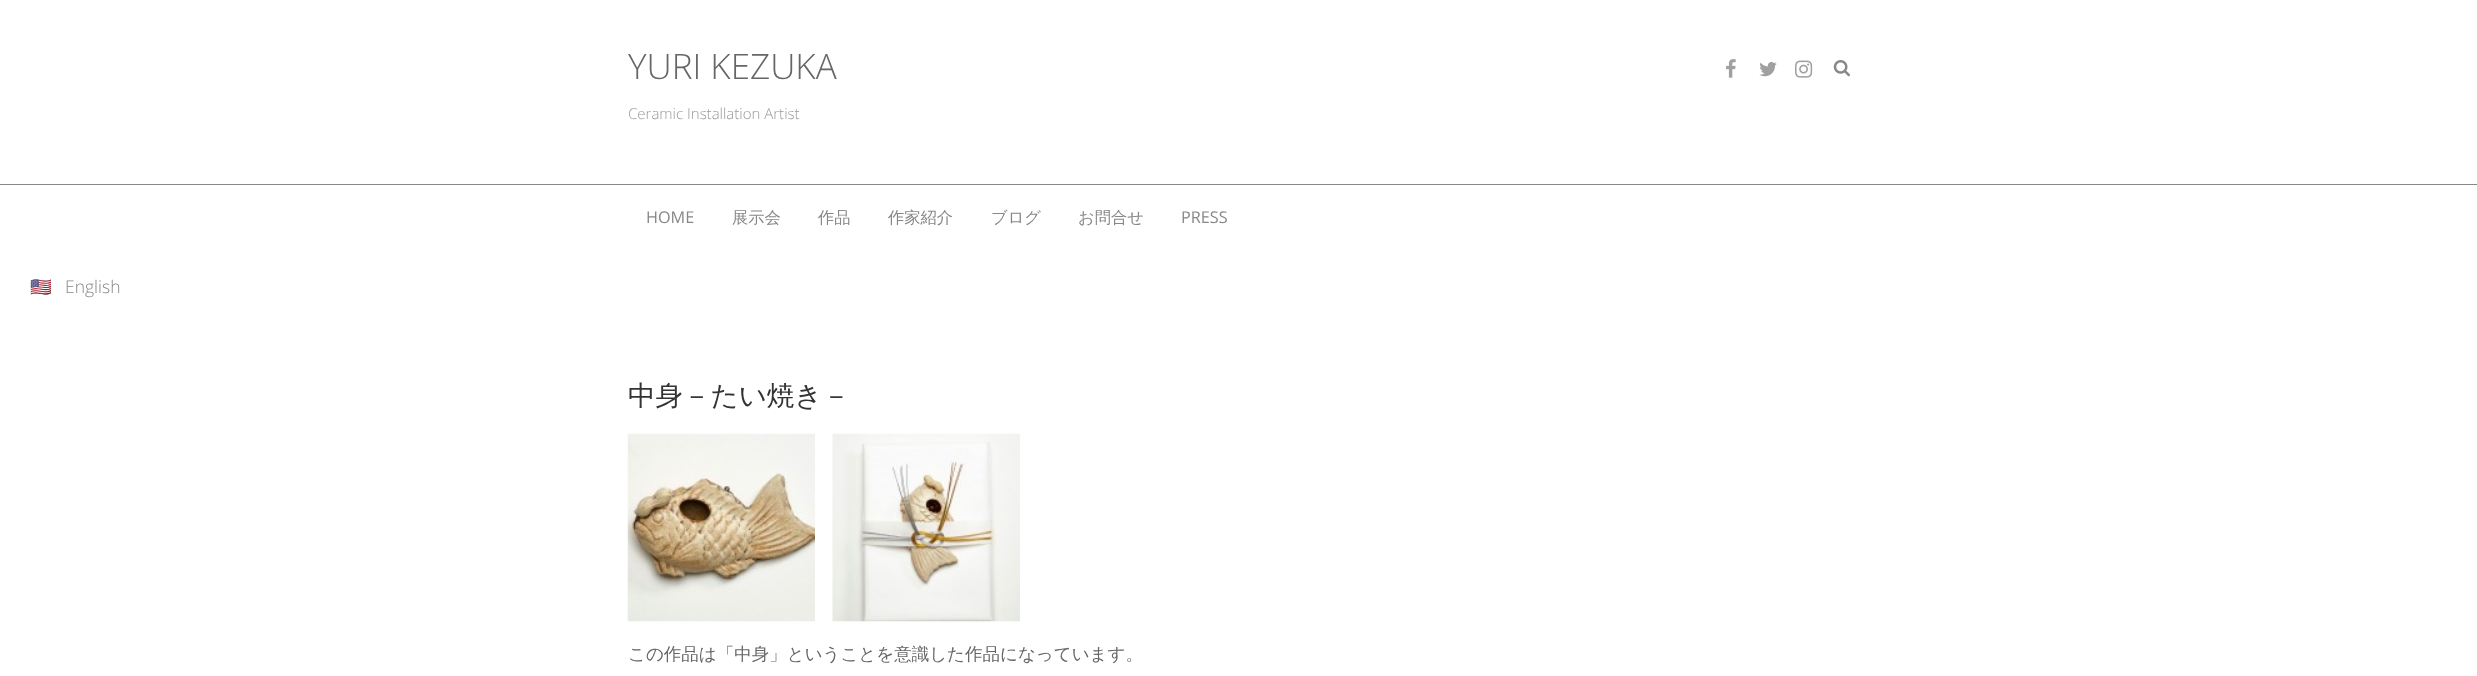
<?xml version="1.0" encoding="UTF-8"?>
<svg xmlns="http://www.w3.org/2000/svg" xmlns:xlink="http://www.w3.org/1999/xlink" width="2477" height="676">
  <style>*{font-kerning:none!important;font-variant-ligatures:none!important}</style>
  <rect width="100%" height="100%" fill="#ffffff" />
  <image x="1726" y="59" width="10" height="19" xlink:href="image1.png" />
  <image x="1759" y="62" width="18" height="15" xlink:href="image2.png" />
  <image x="1795" y="60" width="18" height="18" xlink:href="image3.png" />
  <image x="1833" y="60" width="17" height="17" xlink:href="image4.png" />
  <rect y="184" width="2477" height="1" fill="#878787" />
  <image x="627" y="433" width="188" height="189" xlink:href="image5.png" />
  <image x="832" y="433" width="188" height="189" xlink:href="image6.png" />
  <text x="628" y="79" style="font-family: Open Sans; font-size: 35px; font-weight: 300; fill: #666666">YURI KEZUKA</text>
  <text x="628" y="119" style="font-family: Open Sans; font-size: 15px; font-weight: 300; fill: #999999">Ceramic Installation Artist</text>
  <text x="646" y="223" style="font-family: Open Sans; font-size: 16.25px; fill: #878787">HOME</text>
  <text x="732" y="223" style="font-family: WenQuanYi Zen Hei; font-size: 16.25px; font-weight: 500; fill: #878787">展示会</text>
  <text x="818" y="223" style="font-family: WenQuanYi Zen Hei; font-size: 16.25px; font-weight: 500; fill: #878787">作品</text>
  <text x="888" y="223" style="font-family: WenQuanYi Zen Hei; font-size: 16.25px; font-weight: 500; fill: #878787">作家紹介</text>
  <text x="991" y="223" style="font-family: WenQuanYi Zen Hei; font-size: 16.25px; font-weight: 500; fill: #878787">ブログ</text>
  <text x="1078" y="223" style="font-family: WenQuanYi Zen Hei; font-size: 16.25px; font-weight: 500; fill: #878787">お問合せ</text>
  <text x="1181" y="223" style="font-family: Open Sans; font-size: 16.25px; fill: #878787">PRESS</text>
  <text x="30" y="293" style="font-family: Noto Color Emoji; font-size: 17.5px; fill: #666666">🇺🇸</text>
  <text x="65" y="293" style="font-family: Open Sans; font-size: 17.5px; font-weight: 300; fill: #878787">English</text>
  <text x="628" y="405" style="font-family: WenQuanYi Zen Hei; font-size: 27.5px; font-weight: 500; fill: #333333">中身－たい焼き－</text>
  <text x="628" y="660" style="font-family: WenQuanYi Zen Hei; font-size: 17.5px; font-weight: 500; fill: #666666">この作品は「中身」ということを意識した作品になっています。</text>
</svg>
